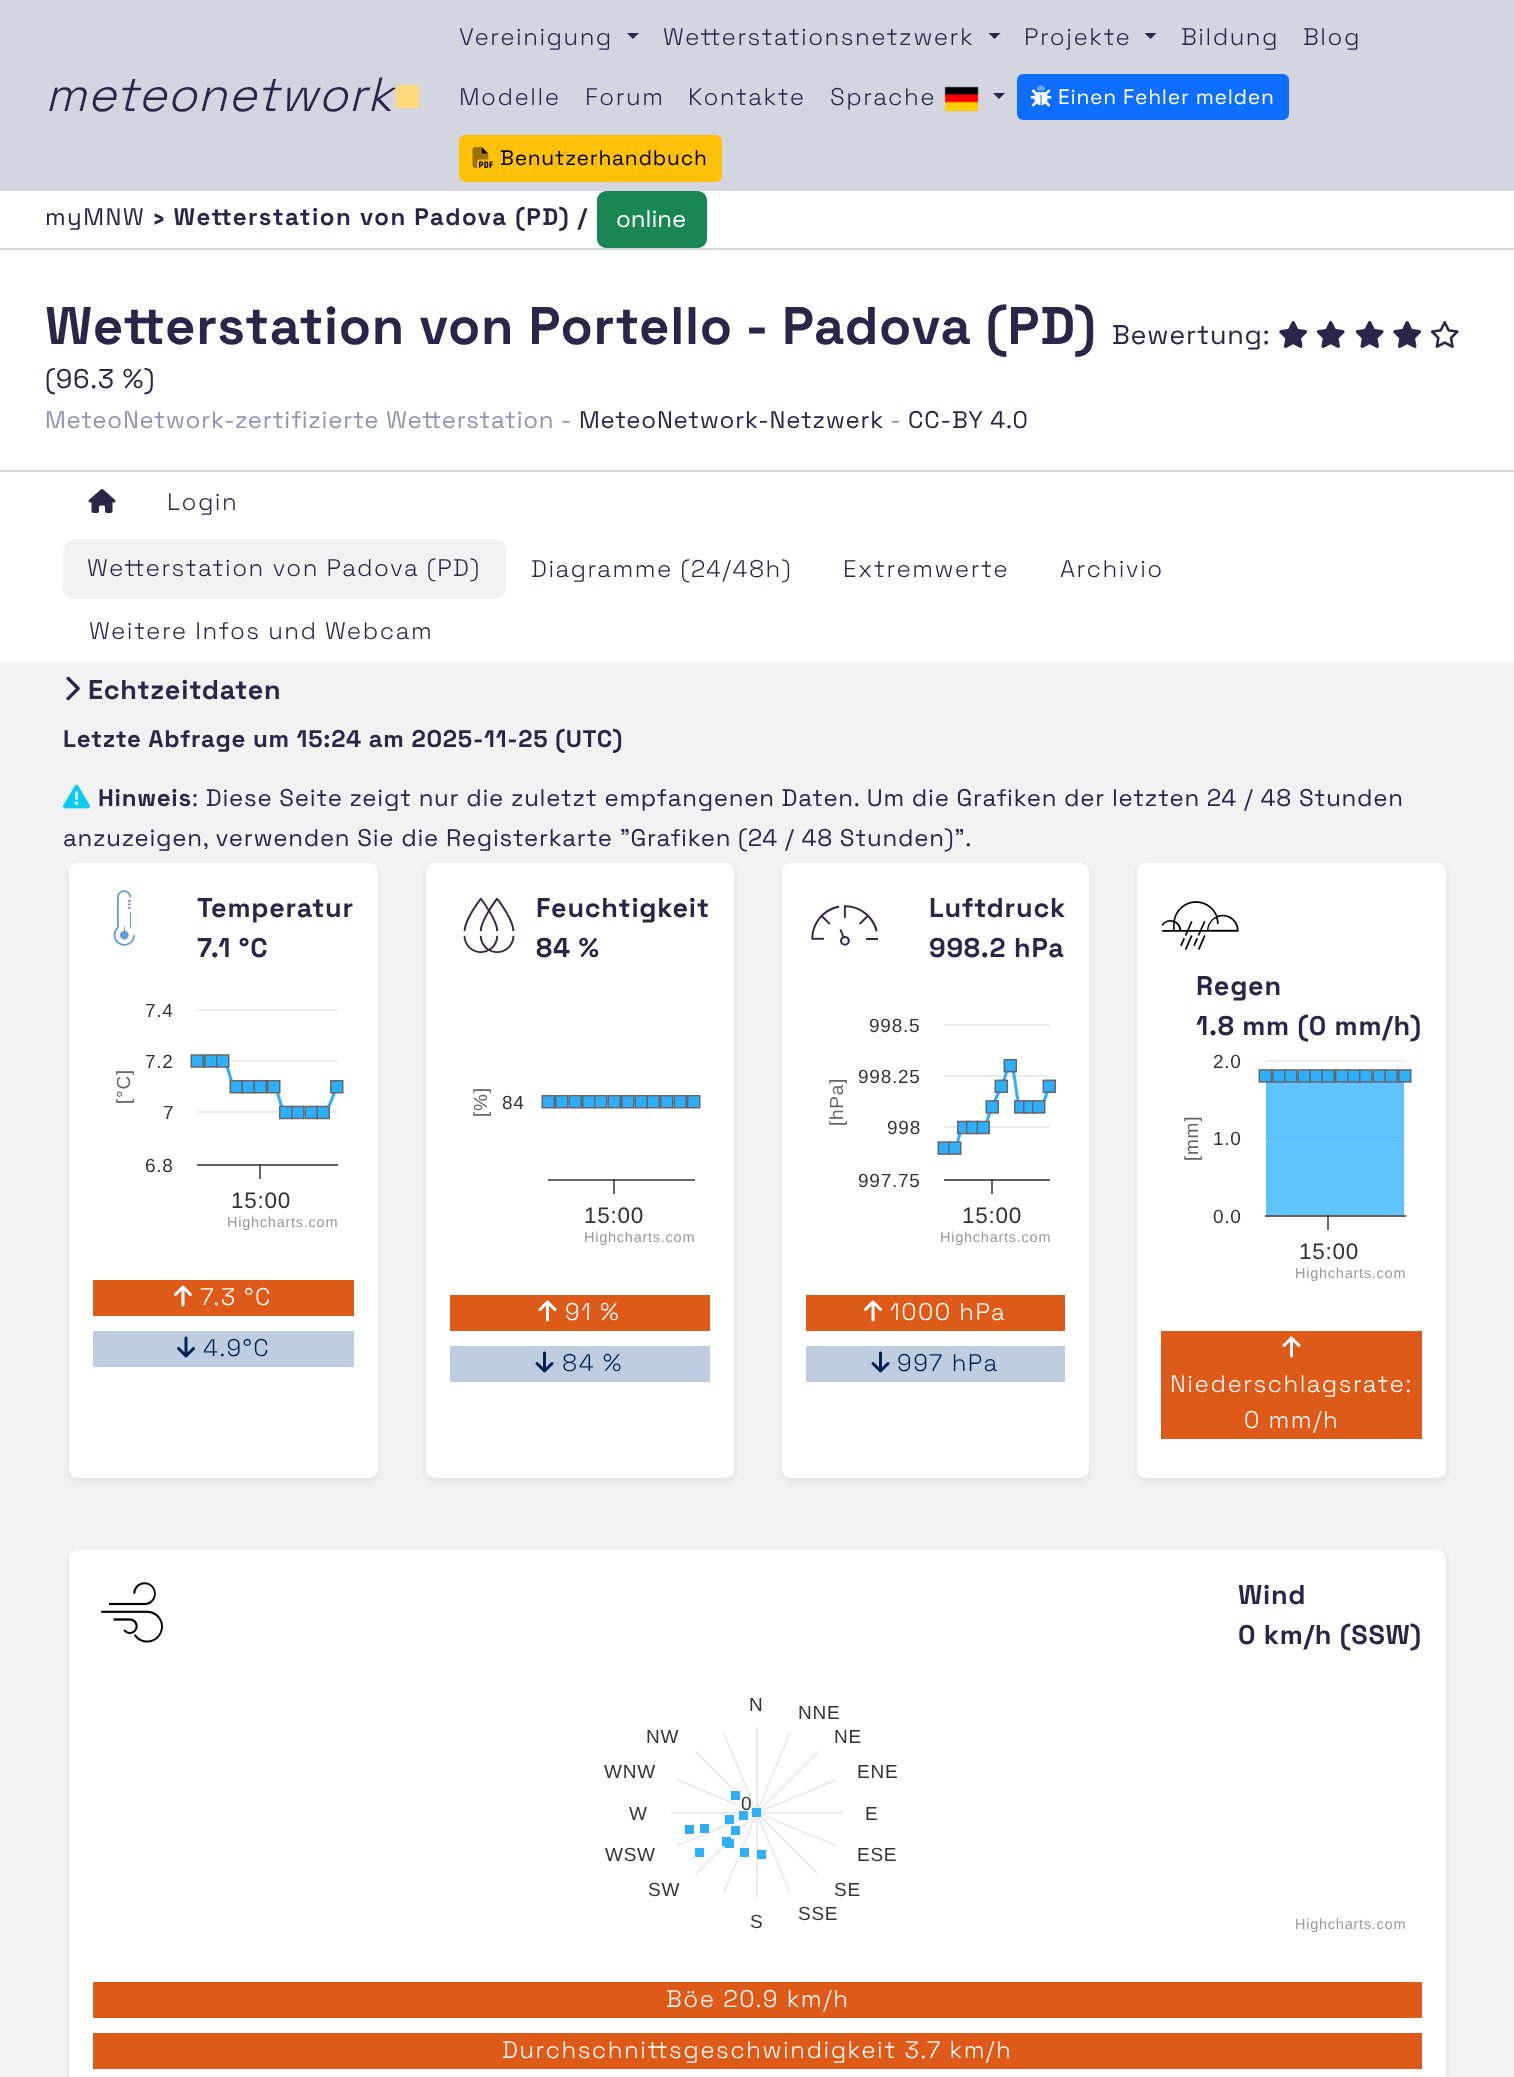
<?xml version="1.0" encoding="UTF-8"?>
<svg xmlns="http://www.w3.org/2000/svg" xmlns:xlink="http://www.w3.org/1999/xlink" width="1514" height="2077">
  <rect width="100%" height="100%" fill="#ffffff" />
  <rect width="1514" height="191" fill="#d3d5e0" />
  <path d="M 627 33 h 12 l -6 6 z" fill="#2a2549" />
  <path d="M 988.5 33 h 12 l -6 6 z" fill="#2a2549" />
  <path d="M 1144.5 33 h 12 l -6 6 z" fill="#2a2549" />
  <image x="944" y="86" width="35" height="26" xlink:href="image1.png" />
  <path d="M 993 93 h 12 l -6 6 z" fill="#2a2549" />
  <rect x="1018" y="75" width="270" height="44" rx="5" fill="#0d6efd" stroke="#0d6efd" stroke-width="2" />
  <image x="1030" y="85" width="22" height="22" xlink:href="image2.png" />
  <rect x="460" y="136" width="261" height="45" rx="5" fill="#ffc107" stroke="#ffc107" stroke-width="2" />
  <image x="472" y="147" width="21" height="21" xlink:href="image3.png" />
  <rect y="248" width="1514" height="2" fill="#d3d5e0" />
  <rect x="598" y="192" width="108" height="55" rx="8" fill="#198754" stroke="#198754" stroke-width="2" />
  <rect y="470" width="1514" height="2" fill="#d3d5e0" />
  <image x="1279" y="321" width="29" height="27" xlink:href="image4.png" />
  <image x="1316" y="321" width="29" height="27" xlink:href="image5.png" />
  <image x="1355" y="321" width="29" height="27" xlink:href="image5.png" />
  <image x="1393" y="321" width="29" height="27" xlink:href="image4.png" />
  <image x="1430" y="321" width="29" height="27" xlink:href="image6.png" />
  <image x="88" y="489" width="28" height="24" xlink:href="image7.png" />
  <rect x="63" y="539" width="443" height="60" rx="12" fill="#f2f2f2" />
  <rect y="662" width="1514" height="1415" fill="#f2f2f2" />
  <image x="66" y="676" width="14" height="25" xlink:href="image8.png" />
  <image x="63" y="784" width="27" height="25" xlink:href="image9.png" />
  <rect x="69" y="866" width="309" height="615" rx="9" fill="#000000" fill-opacity="0.07" filter="blur(3px)" />
  <rect x="69" y="863" width="309" height="615" rx="9" fill="#ffffff" />
  <image x="113" y="890" width="22" height="56" xlink:href="image10.png" />
  <image x="190" y="1009" width="154" height="170" xlink:href="image11.png" />
  <rect x="93" y="1280" width="261" height="36" fill="#de5a18" />
  <image x="174" y="1285" width="18" height="22" xlink:href="image12.png" />
  <rect x="93" y="1331" width="261" height="36" fill="#becee0" />
  <image x="177" y="1336" width="18" height="22" xlink:href="image13.png" />
  <rect x="426" y="866" width="308" height="615" rx="9" fill="#000000" fill-opacity="0.07" filter="blur(3px)" />
  <rect x="426" y="863" width="308" height="615" rx="9" fill="#ffffff" />
  <image x="463" y="897" width="52" height="56" xlink:href="image14.png" />
  <image x="541" y="1095" width="160" height="99" xlink:href="image15.png" />
  <rect x="450" y="1295" width="260" height="36" fill="#de5a18" />
  <image x="538" y="1300" width="19" height="22" xlink:href="image16.png" />
  <rect x="450" y="1346" width="260" height="36" fill="#becee0" />
  <image x="535" y="1351" width="19" height="22" xlink:href="image17.png" />
  <rect x="782" y="866" width="307" height="615" rx="9" fill="#000000" fill-opacity="0.07" filter="blur(3px)" />
  <rect x="782" y="863" width="307" height="615" rx="9" fill="#ffffff" />
  <image x="811" y="905" width="67" height="41" xlink:href="image18.png" />
  <image x="937" y="1024" width="119" height="170" xlink:href="image19.png" />
  <rect x="806" y="1295" width="259" height="36" fill="#de5a18" />
  <image x="864" y="1300" width="18" height="22" xlink:href="image12.png" />
  <rect x="806" y="1346" width="259" height="36" fill="#becee0" />
  <image x="871" y="1351" width="19" height="22" xlink:href="image17.png" />
  <rect x="1137" y="866" width="309" height="615" rx="9" fill="#000000" fill-opacity="0.07" filter="blur(3px)" />
  <rect x="1137" y="863" width="309" height="615" rx="9" fill="#ffffff" />
  <image x="1161" y="901" width="78" height="49" xlink:href="image20.png" />
  <image x="1258" y="1060" width="154" height="170" xlink:href="image21.png" />
  <rect x="1161" y="1331" width="261" height="108" fill="#de5a18" />
  <image x="1282" y="1336" width="19" height="22" xlink:href="image16.png" />
  <rect x="69" y="1553" width="1377" height="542" rx="9" fill="#000000" fill-opacity="0.07" filter="blur(3px)" />
  <rect x="69" y="1550" width="1377" height="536" rx="9" fill="#ffffff" />
  <image x="101" y="1582" width="62" height="61" xlink:href="image22.png" />
  <image x="671" y="1727" width="172" height="172" xlink:href="image23.png" />
  <rect x="93" y="1982" width="1329" height="36" fill="#de5a18" />
  <rect x="93" y="2033" width="1329" height="36" fill="#de5a18" />
  <text x="45" y="111" style="font-family: Space Grotesk; font-size: 48px; font-weight: 300; font-style: italic; letter-spacing: 0.75px; fill: #2a2549">meteonetwork</text>
  <text x="393" y="111" style="font-family: Liberation Sans; font-size: 48px; font-style: italic; letter-spacing: 0.75px; fill: #fed97c">■</text>
  <text x="459" y="45" style="font-family: Space Grotesk; font-size: 24px; font-weight: 300; letter-spacing: 1.5px; fill: #2a2549">Vereinigung</text>
  <text x="663" y="45" style="font-family: Space Grotesk; font-size: 24px; font-weight: 300; letter-spacing: 1.5px; fill: #2a2549">Wetterstationsnetzwerk</text>
  <text x="1024" y="45" style="font-family: Space Grotesk; font-size: 24px; font-weight: 300; letter-spacing: 1.5px; fill: #2a2549">Projekte</text>
  <text x="1181" y="45" style="font-family: Space Grotesk; font-size: 24px; font-weight: 300; letter-spacing: 1.5px; fill: #2a2549">Bildung</text>
  <text x="1303" y="45" style="font-family: Space Grotesk; font-size: 24px; font-weight: 300; letter-spacing: 1.5px; fill: #2a2549">Blog</text>
  <text x="459" y="105" style="font-family: Space Grotesk; font-size: 24px; font-weight: 300; letter-spacing: 1.5px; fill: #2a2549">Modelle</text>
  <text x="585" y="105" style="font-family: Space Grotesk; font-size: 24px; font-weight: 300; letter-spacing: 1.5px; fill: #2a2549">Forum</text>
  <text x="688" y="105" style="font-family: Space Grotesk; font-size: 24px; font-weight: 300; letter-spacing: 1.5px; fill: #2a2549">Kontakte</text>
  <text x="830" y="105" style="font-family: Space Grotesk; font-size: 24px; font-weight: 300; letter-spacing: 1.5px; fill: #2a2549">Sprache</text>
  <text x="1058" y="104" style="font-family: Space Grotesk; font-size: 21px; letter-spacing: 0.75px; fill: #ffffff">Einen Fehler melden</text>
  <text x="500" y="165" style="font-family: Space Grotesk; font-size: 21px; letter-spacing: 0.75px; fill: #000000">Benutzerhandbuch</text>
  <text x="45" y="225" style="font-family: Space Grotesk; font-size: 24px; letter-spacing: 1.5px; fill: #2a2549">myMNW</text>
  <text x="153" y="225" style="font-family: Space Grotesk; font-size: 24px; font-weight: bold; letter-spacing: 1.5px; fill: #2a2549">› Wetterstation von Padova (PD) /</text>
  <text x="616" y="227" style="font-family: Space Grotesk; font-size: 24px; fill: #ffffff">online</text>
  <text x="45" y="344" style="font-family: Space Grotesk; font-size: 52.75px; font-weight: bold; letter-spacing: 0.75px; fill: #2a2549">Wetterstation von Portello - Padova (PD)</text>
  <text x="1112" y="344" style="font-family: Space Grotesk; font-size: 27px; letter-spacing: 0.75px; fill: #2a2549">Bewertung:</text>
  <text x="45" y="388" style="font-family: Space Grotesk; font-size: 27px; letter-spacing: 0.75px; fill: #2a2549">(96.3 %)</text>
  <text x="45" y="428" style="font-family: Space Grotesk; font-size: 24px; letter-spacing: 0.75px; fill: #9193b1">MeteoNetwork-zertifizierte Wetterstation -</text>
  <text x="579" y="428" style="font-family: Space Grotesk; font-size: 24px; letter-spacing: 0.75px; fill: #2a2549">MeteoNetwork-Netzwerk</text>
  <text x="890" y="428" style="font-family: Space Grotesk; font-size: 24px; letter-spacing: 0.75px; fill: #9193b1">-</text>
  <text x="908" y="428" style="font-family: Space Grotesk; font-size: 24px; letter-spacing: 0.75px; fill: #2a2549">CC-BY 4.0</text>
  <text x="167" y="510" style="font-family: Space Grotesk; font-size: 24px; font-weight: 300; letter-spacing: 1.5px; fill: #2a2549">Login</text>
  <text x="87" y="576" style="font-family: Space Grotesk; font-size: 24px; font-weight: 300; letter-spacing: 1.5px; fill: #2a2549">Wetterstation von Padova (PD)</text>
  <text x="531" y="577" style="font-family: Space Grotesk; font-size: 24px; font-weight: 300; letter-spacing: 1.5px; fill: #2a2549">Diagramme (24/48h)</text>
  <text x="843" y="577" style="font-family: Space Grotesk; font-size: 24px; font-weight: 300; letter-spacing: 1.5px; fill: #2a2549">Extremwerte</text>
  <text x="1060" y="577" style="font-family: Space Grotesk; font-size: 24px; font-weight: 300; letter-spacing: 1.5px; fill: #2a2549">Archivio</text>
  <text x="89" y="639" style="font-family: Space Grotesk; font-size: 24px; font-weight: 300; letter-spacing: 1.5px; fill: #2a2549">Weitere Infos und Webcam</text>
  <text x="88" y="699" style="font-family: Space Grotesk; font-size: 27px; font-weight: bold; letter-spacing: 0.75px; fill: #2a2549">Echtzeitdaten</text>
  <text x="63" y="747" style="font-family: Space Grotesk; font-size: 24px; font-weight: bold; letter-spacing: 0.75px; fill: #2a2549">Letzte Abfrage um 15:24 am 2025-11-25 (UTC)</text>
  <text x="98" y="806" style="font-family: Space Grotesk; font-size: 24px; font-weight: bold; letter-spacing: 0.75px; fill: #2a2549">Hinweis</text>
  <text x="192" y="806" style="font-family: Space Grotesk; font-size: 24px; letter-spacing: 0.75px; fill: #2a2549">: Diese Seite zeigt nur die zuletzt empfangenen Daten. Um die Grafiken der letzten 24 / 48 Stunden</text>
  <text x="63" y="846" style="font-family: Space Grotesk; font-size: 24px; letter-spacing: 0.75px; fill: #2a2549">anzuzeigen, verwenden Sie die Registerkarte "Grafiken (24 / 48 Stunden)".</text>
  <text x="197" y="917" style="font-family: Space Grotesk; font-size: 27px; font-weight: bold; letter-spacing: 0.75px; fill: #2a2549">Temperatur</text>
  <text x="197" y="957" style="font-family: Space Grotesk; font-size: 27px; font-weight: bold; letter-spacing: 0.75px; fill: #2a2549">7.1 °C</text>
  <text x="145" y="1017" style="font-family: Liberation Sans; font-size: 19px; letter-spacing: 0.75px; fill: #333333">7.4</text>
  <text x="145" y="1068" style="font-family: Liberation Sans; font-size: 19px; letter-spacing: 0.75px; fill: #333333">7.2</text>
  <text x="130" y="1104" transform="rotate(-90 130 1104)" style="font-family: Liberation Sans; font-size: 19px; letter-spacing: 0.75px; fill: #666666">[°C]</text>
  <text x="163" y="1119" style="font-family: Liberation Sans; font-size: 19px; letter-spacing: 0.75px; fill: #333333">7</text>
  <text x="145" y="1172" style="font-family: Liberation Sans; font-size: 19px; letter-spacing: 0.75px; fill: #333333">6.8</text>
  <text x="231" y="1208" style="font-family: Liberation Sans; font-size: 22.5px; letter-spacing: 0.75px; fill: #333333">15:00</text>
  <text x="227" y="1227" style="font-family: Liberation Sans; font-size: 14.5px; letter-spacing: 0.75px; fill: #999999">Highcharts.com</text>
  <text x="200" y="1305" style="font-family: Space Grotesk; font-size: 24px; font-weight: 300; letter-spacing: 1.5px; fill: #ffffff">7.3 °C</text>
  <text x="203" y="1356" style="font-family: Space Grotesk; font-size: 24px; font-weight: 300; letter-spacing: 1.5px; fill: #002352">4.9°C</text>
  <text x="536" y="917" style="font-family: Space Grotesk; font-size: 27px; font-weight: bold; letter-spacing: 0.75px; fill: #2a2549">Feuchtigkeit</text>
  <text x="536" y="957" style="font-family: Space Grotesk; font-size: 27px; font-weight: bold; letter-spacing: 0.75px; fill: #2a2549">84 %</text>
  <text x="487" y="1117" transform="rotate(-90 487 1117)" style="font-family: Liberation Sans; font-size: 19px; letter-spacing: 0.75px; fill: #666666">[%]</text>
  <text x="502" y="1109" style="font-family: Liberation Sans; font-size: 19px; letter-spacing: 0.75px; fill: #333333">84</text>
  <text x="584" y="1223" style="font-family: Liberation Sans; font-size: 22.5px; letter-spacing: 0.75px; fill: #333333">15:00</text>
  <text x="584" y="1242" style="font-family: Liberation Sans; font-size: 14.5px; letter-spacing: 0.75px; fill: #999999">Highcharts.com</text>
  <text x="565" y="1320" style="font-family: Space Grotesk; font-size: 24px; font-weight: 300; letter-spacing: 1.5px; fill: #ffffff">91 %</text>
  <text x="562" y="1371" style="font-family: Space Grotesk; font-size: 24px; font-weight: 300; letter-spacing: 1.5px; fill: #002352">84 %</text>
  <text x="929" y="917" style="font-family: Space Grotesk; font-size: 27px; font-weight: bold; letter-spacing: 0.75px; fill: #2a2549">Luftdruck</text>
  <text x="929" y="957" style="font-family: Space Grotesk; font-size: 27px; font-weight: bold; letter-spacing: 0.75px; fill: #2a2549">998.2 hPa</text>
  <text x="869" y="1032" style="font-family: Liberation Sans; font-size: 19px; letter-spacing: 0.75px; fill: #333333">998.5</text>
  <text x="858" y="1083" style="font-family: Liberation Sans; font-size: 19px; letter-spacing: 0.75px; fill: #333333">998.25</text>
  <text x="843" y="1126" transform="rotate(-90 843 1126)" style="font-family: Liberation Sans; font-size: 19px; letter-spacing: 0.75px; fill: #666666">[hPa]</text>
  <text x="887" y="1134" style="font-family: Liberation Sans; font-size: 19px; letter-spacing: 0.75px; fill: #333333">998</text>
  <text x="858" y="1187" style="font-family: Liberation Sans; font-size: 19px; letter-spacing: 0.75px; fill: #333333">997.75</text>
  <text x="962" y="1223" style="font-family: Liberation Sans; font-size: 22.5px; letter-spacing: 0.75px; fill: #333333">15:00</text>
  <text x="940" y="1242" style="font-family: Liberation Sans; font-size: 14.5px; letter-spacing: 0.75px; fill: #999999">Highcharts.com</text>
  <text x="890" y="1320" style="font-family: Space Grotesk; font-size: 24px; font-weight: 300; letter-spacing: 1.5px; fill: #ffffff">1000 hPa</text>
  <text x="897" y="1371" style="font-family: Space Grotesk; font-size: 24px; font-weight: 300; letter-spacing: 1.5px; fill: #002352">997 hPa</text>
  <text x="1196" y="995" style="font-family: Space Grotesk; font-size: 27px; font-weight: bold; letter-spacing: 0.75px; fill: #2a2549">Regen</text>
  <text x="1196" y="1035" style="font-family: Space Grotesk; font-size: 27px; font-weight: bold; letter-spacing: 0.75px; fill: #2a2549">1.8 mm (0 mm/h)</text>
  <text x="1198" y="1161" transform="rotate(-90 1198 1161)" style="font-family: Liberation Sans; font-size: 19px; letter-spacing: 0.75px; fill: #666666">[mm]</text>
  <text x="1213" y="1068" style="font-family: Liberation Sans; font-size: 19px; letter-spacing: 0.75px; fill: #333333">2.0</text>
  <text x="1213" y="1145" style="font-family: Liberation Sans; font-size: 19px; letter-spacing: 0.75px; fill: #333333">1.0</text>
  <text x="1213" y="1223" style="font-family: Liberation Sans; font-size: 19px; letter-spacing: 0.75px; fill: #333333">0.0</text>
  <text x="1299" y="1259" style="font-family: Liberation Sans; font-size: 22.5px; letter-spacing: 0.75px; fill: #333333">15:00</text>
  <text x="1295" y="1278" style="font-family: Liberation Sans; font-size: 14.5px; letter-spacing: 0.75px; fill: #999999">Highcharts.com</text>
  <text x="1170" y="1392" style="font-family: Space Grotesk; font-size: 24px; font-weight: 300; letter-spacing: 1.5px; fill: #ffffff">Niederschlagsrate:</text>
  <text x="1244" y="1428" style="font-family: Space Grotesk; font-size: 24px; font-weight: 300; letter-spacing: 1.5px; fill: #ffffff">0 mm/h</text>
  <text x="1238" y="1604" style="font-family: Space Grotesk; font-size: 27px; font-weight: bold; letter-spacing: 0.75px; fill: #2a2549">Wind</text>
  <text x="1238" y="1644" style="font-family: Space Grotesk; font-size: 27px; font-weight: bold; letter-spacing: 0.75px; fill: #2a2549">0 km/h (SSW)</text>
  <text x="749" y="1711" style="font-family: Liberation Sans; font-size: 19px; letter-spacing: 0.75px; fill: #333333">N</text>
  <text x="798" y="1719" style="font-family: Liberation Sans; font-size: 19px; letter-spacing: 0.75px; fill: #333333">NNE</text>
  <text x="646" y="1743" style="font-family: Liberation Sans; font-size: 19px; letter-spacing: 0.75px; fill: #333333">NW</text>
  <text x="834" y="1743" style="font-family: Liberation Sans; font-size: 19px; letter-spacing: 0.75px; fill: #333333">NE</text>
  <text x="604" y="1778" style="font-family: Liberation Sans; font-size: 19px; letter-spacing: 0.75px; fill: #333333">WNW</text>
  <text x="857" y="1778" style="font-family: Liberation Sans; font-size: 19px; letter-spacing: 0.75px; fill: #333333">ENE</text>
  <text x="741" y="1810" style="font-family: Liberation Sans; font-size: 19px; letter-spacing: 0.75px; fill: #333333">0</text>
  <text x="629" y="1820" style="font-family: Liberation Sans; font-size: 19px; letter-spacing: 0.75px; fill: #333333">W</text>
  <text x="865" y="1820" style="font-family: Liberation Sans; font-size: 19px; letter-spacing: 0.75px; fill: #333333">E</text>
  <text x="605" y="1861" style="font-family: Liberation Sans; font-size: 19px; letter-spacing: 0.75px; fill: #333333">WSW</text>
  <text x="857" y="1861" style="font-family: Liberation Sans; font-size: 19px; letter-spacing: 0.75px; fill: #333333">ESE</text>
  <text x="648" y="1896" style="font-family: Liberation Sans; font-size: 19px; letter-spacing: 0.75px; fill: #333333">SW</text>
  <text x="834" y="1896" style="font-family: Liberation Sans; font-size: 19px; letter-spacing: 0.75px; fill: #333333">SE</text>
  <text x="750" y="1928" style="font-family: Liberation Sans; font-size: 19px; letter-spacing: 0.75px; fill: #333333">S</text>
  <text x="798" y="1920" style="font-family: Liberation Sans; font-size: 19px; letter-spacing: 0.75px; fill: #333333">SSE</text>
  <text x="1295" y="1929" style="font-family: Liberation Sans; font-size: 14.5px; letter-spacing: 0.75px; fill: #999999">Highcharts.com</text>
  <text x="666" y="2007" style="font-family: Space Grotesk; font-size: 24px; font-weight: 300; letter-spacing: 1.5px; fill: #ffffff">Böe 20.9 km/h</text>
  <text x="502" y="2058" style="font-family: Space Grotesk; font-size: 24px; font-weight: 300; letter-spacing: 1.5px; fill: #ffffff">Durchschnittsgeschwindigkeit 3.7 km/h</text>
</svg>
